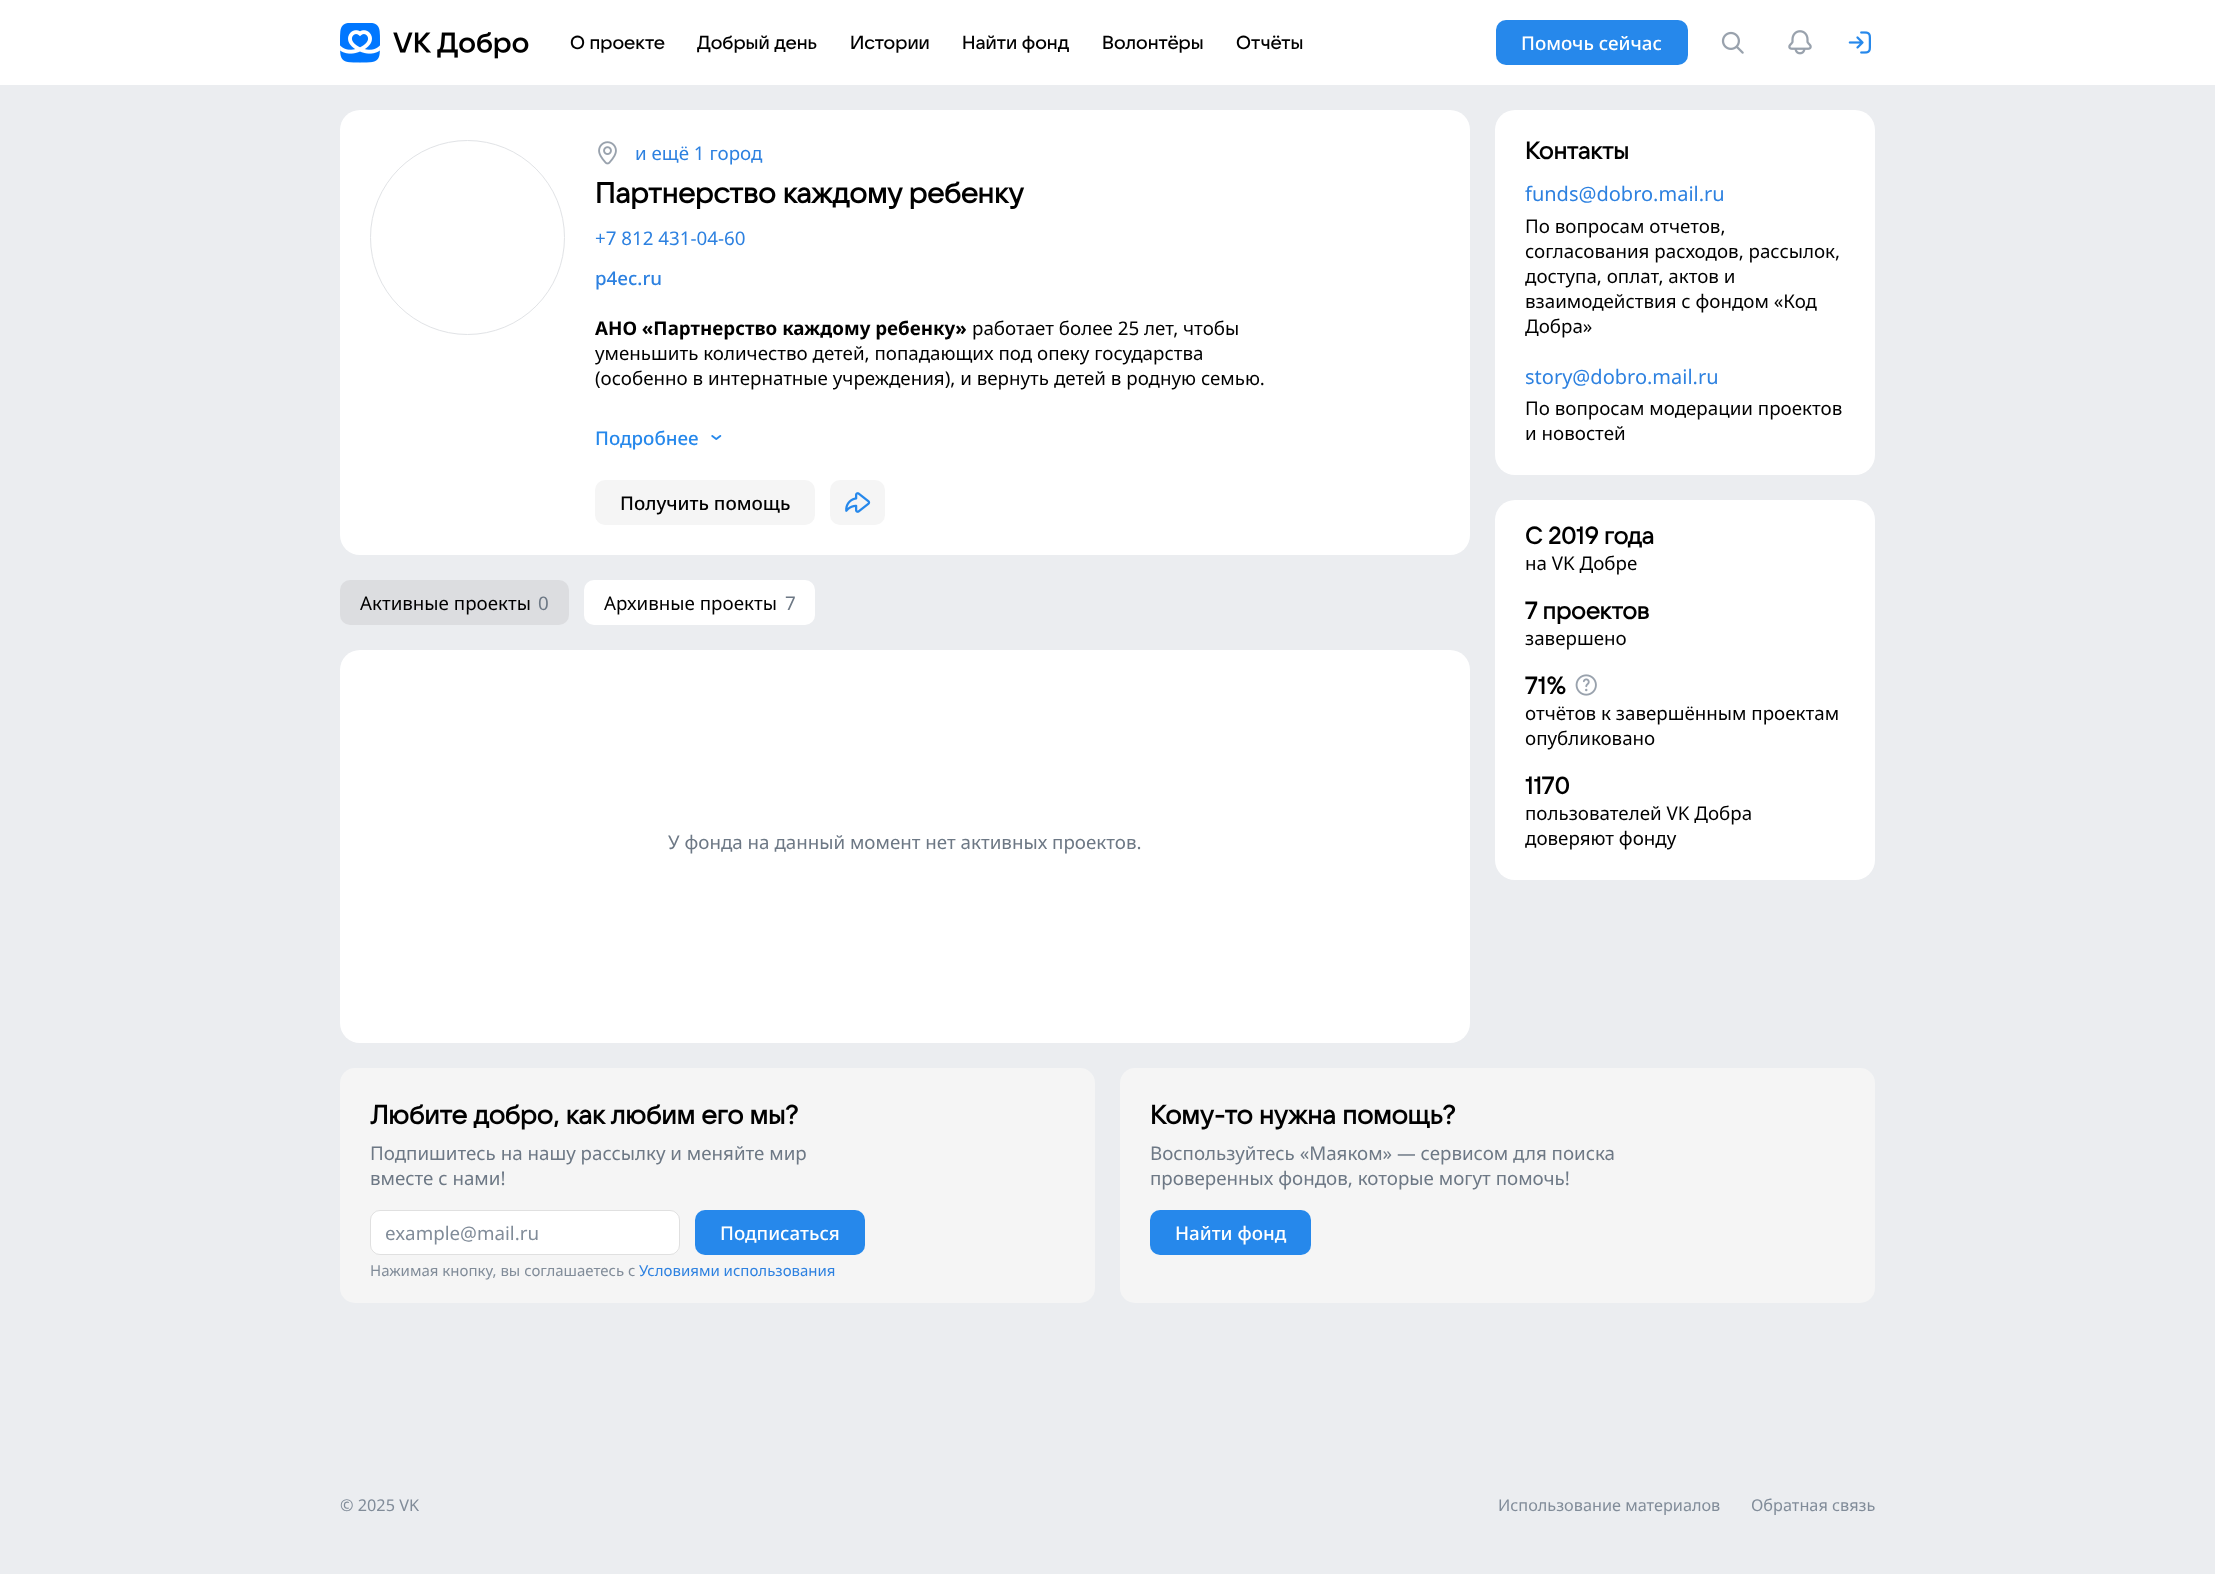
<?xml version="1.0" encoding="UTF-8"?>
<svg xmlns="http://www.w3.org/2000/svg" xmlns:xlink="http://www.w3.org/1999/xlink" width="2215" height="1574">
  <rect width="100%" height="100%" fill="#ebedf0" />
  <rect width="2215" height="85" fill="#ffffff" />
  <image x="340" y="23" width="189" height="40" xlink:href="image1.png" />
  <rect x="1496" y="20" width="192" height="45" rx="10" fill="#2688eb" />
  <image x="1721" y="31" width="23" height="23" xlink:href="image2.png" />
  <image x="1788" y="30" width="24" height="25" xlink:href="image3.png" />
  <image x="1848" y="31" width="23" height="23" xlink:href="image4.png" />
  <rect x="340" y="110" width="1130" height="445" rx="20" fill="#ffffff" />
  <circle cx="467.5" cy="237.5" r="97" fill="none" stroke="#e1e3e6" />
  <image x="598" y="141" width="19" height="24" xlink:href="image5.png" />
  <image x="711" y="435" width="11" height="5" xlink:href="image6.png" />
  <rect x="595" y="480" width="220" height="45" rx="10" fill="#f5f5f5" />
  <rect x="830" y="480" width="55" height="45" rx="10" fill="#f5f5f5" />
  <image x="845" y="492" width="26" height="21" xlink:href="image7.png" />
  <rect x="340" y="580" width="229" height="45" rx="10" fill="#dcdde0" />
  <rect x="584" y="580" width="231" height="45" rx="10" fill="#ffffff" />
  <rect x="340" y="650" width="1130" height="393" rx="20" fill="#ffffff" />
  <rect x="1495" y="110" width="380" height="365" rx="20" fill="#ffffff" />
  <rect x="1495" y="500" width="380" height="380" rx="20" fill="#ffffff" />
  <image x="1575" y="674" width="22" height="22" xlink:href="image8.png" />
  <rect x="340" y="1068" width="755" height="235" rx="15" fill="#f5f5f5" />
  <rect x="370" y="1210" width="310" height="45" rx="10" fill="#ffffff" />
  <rect x="370.5" y="1210.5" width="309" height="44" rx="9.5" fill="none" stroke="#000000" stroke-opacity="0.12" />
  <rect x="695" y="1210" width="170" height="45" rx="10" fill="#2688eb" />
  <rect x="1120" y="1068" width="755" height="235" rx="15" fill="#f5f5f5" />
  <rect x="1150" y="1210" width="161" height="45" rx="10" fill="#2688eb" />
  <text x="570" y="49" style="font-family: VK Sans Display; font-size: 18.75px; font-weight: 500; fill: #000000">О проекте</text>
  <text x="697" y="49" style="font-family: VK Sans Display; font-size: 18.75px; font-weight: 500; fill: #000000">Добрый день</text>
  <text x="850" y="49" style="font-family: VK Sans Display; font-size: 18.75px; font-weight: 500; fill: #000000">Истории</text>
  <text x="962" y="49" style="font-family: VK Sans Display; font-size: 18.75px; font-weight: 500; fill: #000000">Найти фонд</text>
  <text x="1102" y="49" style="font-family: VK Sans Display; font-size: 18.75px; font-weight: 500; fill: #000000">Волонтёры</text>
  <text x="1236" y="49" style="font-family: VK Sans Display; font-size: 18.75px; font-weight: 500; fill: #000000">Отчёты</text>
  <text x="1521" y="50" style="font-family: Noto Sans; font-size: 18.75px; font-weight: 500; fill: #ffffff">Помочь сейчас</text>
  <text x="635" y="160" style="font-family: Noto Sans; font-size: 18.75px; fill: #2d81e0">и ещё 1 город</text>
  <text x="595" y="203" style="font-family: VK Sans Display; font-size: 28.75px; font-weight: bold; fill: #000000">Партнерство каждому ребенку</text>
  <text x="595" y="245" style="font-family: Noto Sans; font-size: 18.75px; fill: #2d81e0">+7 812 431-04-60</text>
  <text x="595" y="285" style="font-family: Noto Sans; font-size: 18.75px; font-weight: 500; fill: #2d81e0">p4ec.ru</text>
  <text x="595" y="335" style="font-family: Noto Sans; font-size: 18.75px; font-weight: bold; fill: #000000">АНО «Партнерство каждому ребенку»</text>
  <text x="972" y="335" style="font-family: Noto Sans; font-size: 18.75px; fill: #000000">работает более 25 лет, чтобы</text>
  <text x="595" y="360" style="font-family: Noto Sans; font-size: 18.75px; fill: #000000">уменьшить количество детей, попадающих под опеку государства</text>
  <text x="595" y="385" style="font-family: Noto Sans; font-size: 18.75px; fill: #000000">(особенно в интернатные учреждения), и вернуть детей в родную семью.</text>
  <text x="595" y="445" style="font-family: Noto Sans; font-size: 18.75px; font-weight: 500; fill: #2688eb">Подробнее</text>
  <text x="620" y="510" style="font-family: Noto Sans; font-size: 18.75px; font-weight: 500; fill: #000000">Получить помощь</text>
  <text x="360" y="610" style="font-family: Noto Sans; font-size: 18.75px; fill: #000000">Активные проекты</text>
  <text x="538" y="610" style="font-family: Noto Sans; font-size: 18.75px; fill: #6d7885">0</text>
  <text x="604" y="610" style="font-family: Noto Sans; font-size: 18.75px; fill: #000000">Архивные проекты</text>
  <text x="785" y="610" style="font-family: Noto Sans; font-size: 18.75px; fill: #6d7885">7</text>
  <text x="668" y="849" style="font-family: Noto Sans; font-size: 18.75px; fill: #6d7885">У фонда на данный момент нет активных проектов.</text>
  <text x="1525" y="159" style="font-family: VK Sans Display; font-size: 23.75px; font-weight: bold; fill: #000000">Контакты</text>
  <text x="1525" y="201" style="font-family: Noto Sans; font-size: 20px; fill: #2d81e0">funds@dobro.mail.ru</text>
  <text x="1525" y="233" style="font-family: Noto Sans; font-size: 18.75px; fill: #000000">По вопросам отчетов,</text>
  <text x="1525" y="258" style="font-family: Noto Sans; font-size: 18.75px; fill: #000000">согласования расходов, рассылок,</text>
  <text x="1525" y="283" style="font-family: Noto Sans; font-size: 18.75px; fill: #000000">доступа, оплат, актов и</text>
  <text x="1525" y="308" style="font-family: Noto Sans; font-size: 18.75px; fill: #000000">взаимодействия с фондом «Код</text>
  <text x="1525" y="333" style="font-family: Noto Sans; font-size: 18.75px; fill: #000000">Добра»</text>
  <text x="1525" y="384" style="font-family: Noto Sans; font-size: 20px; fill: #2d81e0">story@dobro.mail.ru</text>
  <text x="1525" y="415" style="font-family: Noto Sans; font-size: 18.75px; fill: #000000">По вопросам модерации проектов</text>
  <text x="1525" y="440" style="font-family: Noto Sans; font-size: 18.75px; fill: #000000">и новостей</text>
  <text x="1525" y="544" style="font-family: VK Sans Display; font-size: 23.75px; font-weight: bold; fill: #000000">C 2019 года</text>
  <text x="1525" y="570" style="font-family: Noto Sans; font-size: 18.75px; fill: #000000">на VK Добре</text>
  <text x="1525" y="619" style="font-family: VK Sans Display; font-size: 23.75px; font-weight: bold; fill: #000000">7 проектов</text>
  <text x="1525" y="645" style="font-family: Noto Sans; font-size: 18.75px; fill: #000000">завершено</text>
  <text x="1525" y="694" style="font-family: VK Sans Display; font-size: 23.75px; font-weight: bold; fill: #000000">71%</text>
  <text x="1525" y="720" style="font-family: Noto Sans; font-size: 18.75px; fill: #000000">отчётов к завершённым проектам</text>
  <text x="1525" y="745" style="font-family: Noto Sans; font-size: 18.75px; fill: #000000">опубликовано</text>
  <text x="1525" y="794" style="font-family: VK Sans Display; font-size: 23.75px; font-weight: bold; fill: #000000">1170</text>
  <text x="1525" y="820" style="font-family: Noto Sans; font-size: 18.75px; fill: #000000">пользователей VK Добра</text>
  <text x="1525" y="845" style="font-family: Noto Sans; font-size: 18.75px; fill: #000000">доверяют фонду</text>
  <text x="370" y="1124" style="font-family: VK Sans Display; font-size: 26.25px; font-weight: bold; fill: #000000">Любите добро, как любим его мы?</text>
  <text x="370" y="1160" style="font-family: Noto Sans; font-size: 18.75px; fill: #6d7885">Подпишитесь на нашу рассылку и меняйте мир</text>
  <text x="370" y="1185" style="font-family: Noto Sans; font-size: 18.75px; fill: #6d7885">вместе с нами!</text>
  <text x="385" y="1240" style="font-family: Noto Sans; font-size: 18.75px; fill: #818c99">example@mail.ru</text>
  <text x="720" y="1240" style="font-family: Noto Sans; font-size: 18.75px; font-weight: 500; fill: #ffffff">Подписаться</text>
  <text x="370" y="1276" style="font-family: Noto Sans; font-size: 15px; fill: #818c99">Нажимая кнопку, вы соглашаетесь с</text>
  <text x="639" y="1276" style="font-family: Noto Sans; font-size: 15px; fill: #2d81e0">Условиями использования</text>
  <text x="1150" y="1124" style="font-family: VK Sans Display; font-size: 26.25px; font-weight: bold; fill: #000000">Кому-то нужна помощь?</text>
  <text x="1150" y="1160" style="font-family: Noto Sans; font-size: 18.75px; fill: #6d7885">Воспользуйтесь «Маяком» — сервисом для поиска</text>
  <text x="1150" y="1185" style="font-family: Noto Sans; font-size: 18.75px; fill: #6d7885">проверенных фондов, которые могут помочь!</text>
  <text x="1175" y="1240" style="font-family: Noto Sans; font-size: 18.75px; font-weight: 500; fill: #ffffff">Найти фонд</text>
  <text x="340" y="1511" style="font-family: Noto Sans; font-size: 16.25px; fill: #818c99">© 2025 VK</text>
  <text x="1498" y="1511" style="font-family: Noto Sans; font-size: 16.25px; fill: #818c99">Использование материалов</text>
  <text x="1751" y="1511" style="font-family: Noto Sans; font-size: 16.25px; fill: #818c99">Обратная связь</text>
</svg>
